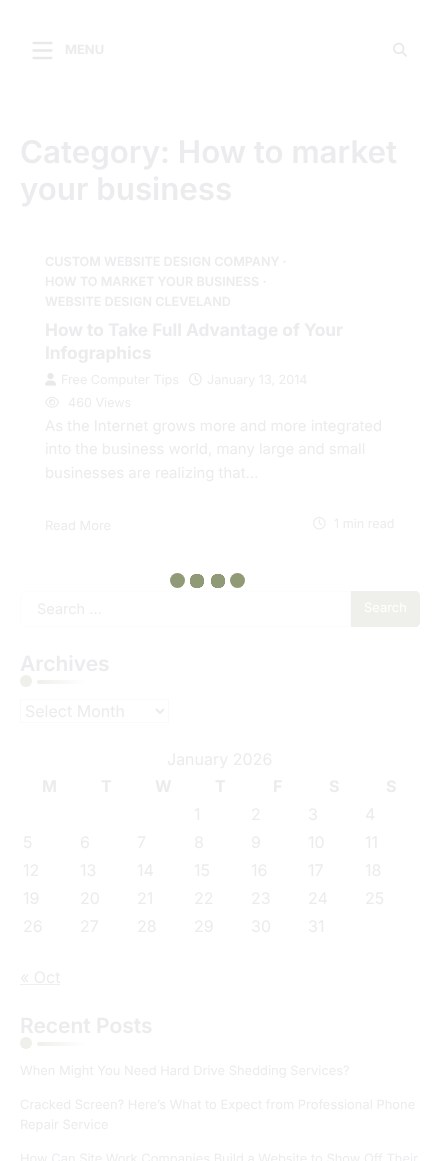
<?xml version="1.0" encoding="UTF-8"?>
<svg xmlns="http://www.w3.org/2000/svg" xmlns:xlink="http://www.w3.org/1999/xlink" width="440" height="1161">
  <defs>
    <linearGradient id="g1" gradientUnits="userSpaceOnUse" x1="37" y1="682" x2="87" y2="682"><stop offset="0" stop-color="#eff0eb" /><stop offset="1" stop-color="#ffffff" /></linearGradient>
    <linearGradient id="g2" gradientUnits="userSpaceOnUse" x1="37" y1="1044" x2="87" y2="1044"><stop offset="0" stop-color="#eff0eb" /><stop offset="1" stop-color="#ffffff" /></linearGradient>
    <radialGradient id="g3" gradientUnits="userSpaceOnUse" cx="218" cy="581" r="7.5"><stop offset="0.95" stop-color="#919a76" /><stop offset="1" stop-color="#ffffff" /></radialGradient>
    <radialGradient id="g4" gradientUnits="userSpaceOnUse" cx="197" cy="581" r="7.5"><stop offset="0.95" stop-color="#919a76" /><stop offset="1" stop-color="#ffffff" /></radialGradient>
  </defs>
  <rect width="100%" height="100%" fill="#ffffff" />
  <path d="M 33.5 43 h 18 m -18 7.5 h 18 m -18 7.5 h 18" fill="none" stroke="#e9e9e9" stroke-width="2.3" stroke-linecap="round" stroke-linejoin="round" />
  <image x="393" y="42" width="14" height="15" xlink:href="image1.png" />
  <image x="45" y="372" width="11" height="14" xlink:href="image2.png" />
  <image x="189" y="372" width="13" height="14" xlink:href="image3.png" />
  <image x="45" y="396" width="15" height="12" xlink:href="image4.png" />
  <image x="313" y="516" width="13" height="14" xlink:href="image5.png" />
  <path d="M 25 591.5 h 325.5 v 35 h -325.5 c -2.5 0 -4.5 -2 -4.5 -4.5 v -26 c 0 -2.5 2 -4.5 4.5 -4.5 z" fill="none" stroke="#e9e9e9" stroke-opacity="0.15" />
  <path d="M 351 591 h 64 c 3 0 5 2 5 5 v 26 c 0 3 -2 5 -5 5 h -64 z" fill="#eff0eb" />
  <circle cx="26" cy="681" r="6" fill="#eff0eb" />
  <rect x="37" y="680" width="50" height="4" rx="2" fill="url(#g1)" />
  <rect x="20.5" y="699.5" width="148" height="23" fill="none" stroke="#fafafa" />
  <path d="M 156 709 l 4 4 l 4 -4" fill="none" stroke="#ececec" stroke-width="2" />
  <rect x="20" y="984" width="40" height="1" fill="#eff0eb" />
  <circle cx="26" cy="1043" r="6" fill="#eff0eb" />
  <rect x="37" y="1042" width="50" height="4" rx="2" fill="url(#g2)" />
  <rect x="211" y="574" width="14" height="14" fill="url(#g3)" />
  <rect x="190" y="574" width="14" height="14" fill="url(#g4)" />
  <circle cx="177.5" cy="580.5" r="7.5" fill="#919a76" />
  <circle cx="237.5" cy="580.5" r="7.5" fill="#919a76" />
  <text x="65" y="54" style="font-family: Inter; font-size: 12.9px; font-weight: bold; fill: #ececee">MENU</text>
  <text x="20" y="163" style="font-family: Inter; font-size: 31.25px; font-weight: 600; fill: #ececee">Category: How to market</text>
  <text x="20" y="200" style="font-family: Inter; font-size: 31.25px; font-weight: 600; fill: #ececee">your business</text>
  <text x="45" y="266" style="font-family: Inter; font-size: 12.6px; font-weight: 600; fill: #ececee">CUSTOM WEBSITE DESIGN COMPANY</text>
  <text x="283" y="266" style="font-family: Liberation Serif; font-size: 12.6px; font-weight: bold; fill: #ececee">∙</text>
  <text x="45" y="286" style="font-family: Inter; font-size: 12.6px; font-weight: 600; fill: #ececee">HOW TO MARKET YOUR BUSINESS</text>
  <text x="263" y="286" style="font-family: Liberation Serif; font-size: 12.6px; font-weight: bold; fill: #ececee">∙</text>
  <text x="45" y="306" style="font-family: Inter; font-size: 12.6px; font-weight: 600; fill: #ececee">WEBSITE DESIGN CLEVELAND</text>
  <text x="45" y="336" style="font-family: Inter; font-size: 17.3px; font-weight: bold; fill: #ececee">How to Take Full Advantage of Your</text>
  <text x="45" y="359" style="font-family: Inter; font-size: 17.3px; font-weight: bold; fill: #ececee">Infographics</text>
  <text x="61" y="384" style="font-family: Inter; font-size: 12.6px; fill: #ececee">Free Computer Tips</text>
  <text x="207" y="384" style="font-family: Inter; font-size: 12.6px; fill: #ececee">January 13, 2014</text>
  <text x="68" y="407" style="font-family: Inter; font-size: 12.6px; fill: #ececee">460 Views</text>
  <text x="45" y="431" style="font-family: Inter; font-size: 14.9px; fill: #ececee">As the Internet grows more and more integrated</text>
  <text x="45" y="454" style="font-family: Inter; font-size: 14.9px; fill: #ececee">into the business world, many large and small</text>
  <text x="45" y="478" style="font-family: Inter; font-size: 14.9px; fill: #ececee">businesses are realizing that…</text>
  <text x="45" y="530" style="font-family: Inter; font-size: 12.9px; fill: #ececee">Read More</text>
  <text x="334" y="528" style="font-family: Inter; font-size: 12.6px; fill: #ececee">1 min read</text>
  <text x="37" y="614" style="font-family: Inter; font-size: 14.5px; fill: #ececee">Search …</text>
  <text x="364" y="612" style="font-family: Inter; font-size: 12.9px; fill: #ffffff">Search</text>
  <text x="20" y="671" style="font-family: Inter; font-size: 21px; font-weight: 600; fill: #ececee">Archives</text>
  <text x="25" y="717" style="font-family: Inter; font-size: 16px; fill: #ececee">Select Month</text>
  <text x="167" y="765" style="font-family: Inter; font-size: 16px; fill: #ececee">January 2026</text>
  <text x="42" y="792" style="font-family: Inter; font-size: 16px; font-weight: bold; fill: #ececee">M</text>
  <text x="101" y="792" style="font-family: Inter; font-size: 16px; font-weight: bold; fill: #ececee">T</text>
  <text x="155" y="792" style="font-family: Inter; font-size: 16px; font-weight: bold; fill: #ececee">W</text>
  <text x="215" y="792" style="font-family: Inter; font-size: 16px; font-weight: bold; fill: #ececee">T</text>
  <text x="273" y="792" style="font-family: Inter; font-size: 16px; font-weight: bold; fill: #ececee">F</text>
  <text x="329" y="792" style="font-family: Inter; font-size: 16px; font-weight: bold; fill: #ececee">S</text>
  <text x="386" y="792" style="font-family: Inter; font-size: 16px; font-weight: bold; fill: #ececee">S</text>
  <text x="194" y="820" style="font-family: Inter; font-size: 16px; fill: #ececee">1</text>
  <text x="251" y="820" style="font-family: Inter; font-size: 16px; fill: #ececee">2</text>
  <text x="308" y="820" style="font-family: Inter; font-size: 16px; fill: #ececee">3</text>
  <text x="365" y="820" style="font-family: Inter; font-size: 16px; fill: #ececee">4</text>
  <text x="23" y="848" style="font-family: Inter; font-size: 16px; fill: #ececee">5</text>
  <text x="80" y="848" style="font-family: Inter; font-size: 16px; fill: #ececee">6</text>
  <text x="137" y="848" style="font-family: Inter; font-size: 16px; fill: #ececee">7</text>
  <text x="194" y="848" style="font-family: Inter; font-size: 16px; fill: #ececee">8</text>
  <text x="251" y="848" style="font-family: Inter; font-size: 16px; fill: #ececee">9</text>
  <text x="308" y="848" style="font-family: Inter; font-size: 16px; fill: #ececee">10</text>
  <text x="365" y="848" style="font-family: Inter; font-size: 16px; fill: #ececee">11</text>
  <text x="23" y="876" style="font-family: Inter; font-size: 16px; fill: #ececee">12</text>
  <text x="80" y="876" style="font-family: Inter; font-size: 16px; fill: #ececee">13</text>
  <text x="137" y="876" style="font-family: Inter; font-size: 16px; fill: #ececee">14</text>
  <text x="194" y="876" style="font-family: Inter; font-size: 16px; fill: #ececee">15</text>
  <text x="251" y="876" style="font-family: Inter; font-size: 16px; fill: #ececee">16</text>
  <text x="308" y="876" style="font-family: Inter; font-size: 16px; fill: #ececee">17</text>
  <text x="365" y="876" style="font-family: Inter; font-size: 16px; fill: #ececee">18</text>
  <text x="23" y="904" style="font-family: Inter; font-size: 16px; fill: #ececee">19</text>
  <text x="80" y="904" style="font-family: Inter; font-size: 16px; fill: #ececee">20</text>
  <text x="137" y="904" style="font-family: Inter; font-size: 16px; fill: #ececee">21</text>
  <text x="194" y="904" style="font-family: Inter; font-size: 16px; fill: #ececee">22</text>
  <text x="251" y="904" style="font-family: Inter; font-size: 16px; fill: #ececee">23</text>
  <text x="308" y="904" style="font-family: Inter; font-size: 16px; fill: #ececee">24</text>
  <text x="365" y="904" style="font-family: Inter; font-size: 16px; fill: #ececee">25</text>
  <text x="23" y="932" style="font-family: Inter; font-size: 16px; fill: #ececee">26</text>
  <text x="80" y="932" style="font-family: Inter; font-size: 16px; fill: #ececee">27</text>
  <text x="137" y="932" style="font-family: Inter; font-size: 16px; fill: #ececee">28</text>
  <text x="194" y="932" style="font-family: Inter; font-size: 16px; fill: #ececee">29</text>
  <text x="251" y="932" style="font-family: Inter; font-size: 16px; fill: #ececee">30</text>
  <text x="308" y="932" style="font-family: Inter; font-size: 16px; fill: #ececee">31</text>
  <text x="20" y="983" style="font-family: Inter; font-size: 16px; fill: #ececee">« Oct</text>
  <text x="20" y="1033" style="font-family: Inter; font-size: 21px; font-weight: 600; fill: #ececee">Recent Posts</text>
  <text x="20" y="1075" style="font-family: Inter; font-size: 12.9px; fill: #ececee">When Might You Need Hard Drive Shedding Services?</text>
  <text x="20" y="1109" style="font-family: Inter; font-size: 12.9px; fill: #ececee">Cracked Screen? Here’s What to Expect from Professional Phone</text>
  <text x="20" y="1129" style="font-family: Inter; font-size: 12.9px; fill: #ececee">Repair Service</text>
  <text x="20" y="1163" style="font-family: Inter; font-size: 12.9px; fill: #ececee">How Can Site Work Companies Build a Website to Show Off Their</text>
</svg>
